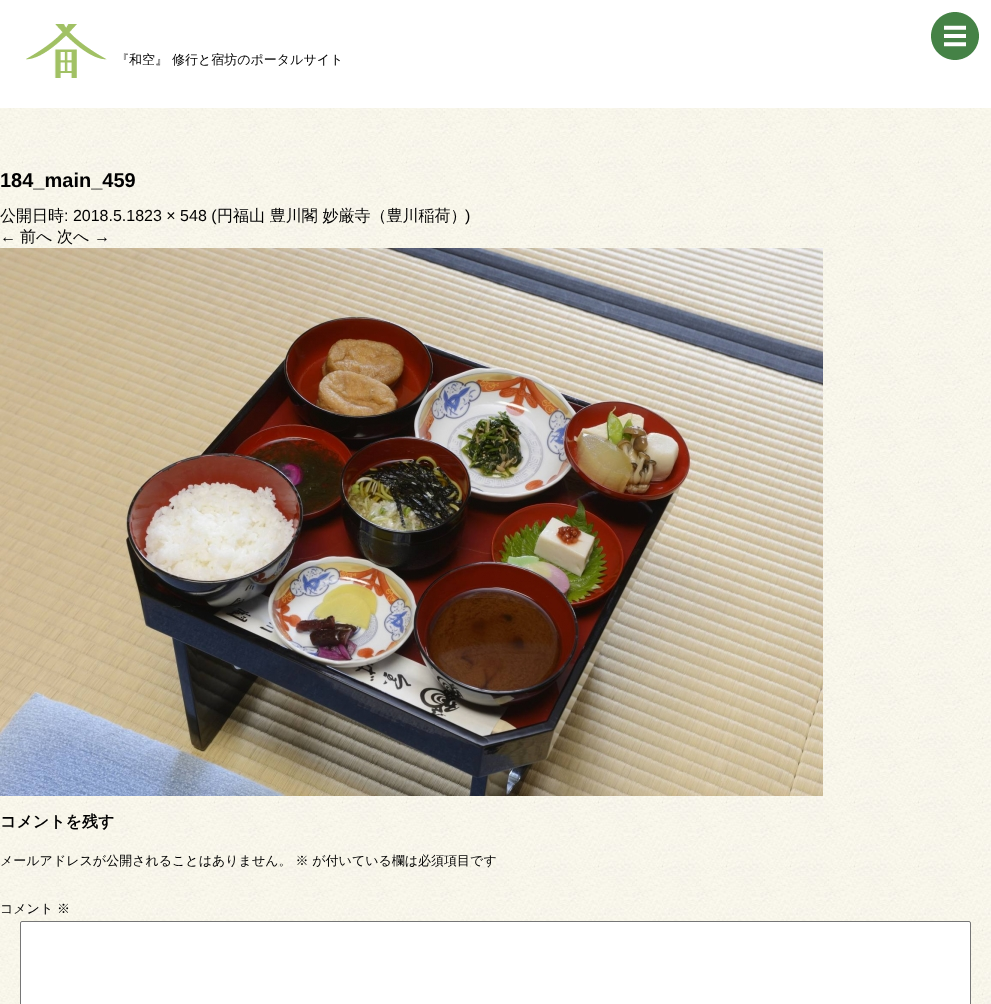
<?xml version="1.0" encoding="UTF-8"?>
<svg xmlns="http://www.w3.org/2000/svg" xmlns:xlink="http://www.w3.org/1999/xlink" width="991" height="1004">
  <rect width="100%" height="100%" fill="#ffffff" />
  <image x="26" y="24" width="81" height="54" xlink:href="image1.png" />
  <image x="931" y="12" width="48" height="48" xlink:href="image2.png" />
  <image x="0" y="108" width="991" height="896" xlink:href="image3.png" />
  <image x="0" y="248" width="823" height="548" xlink:href="image4.png" />
  <rect x="20.5" y="921.5" width="950" height="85" rx="1.5" fill="#ffffff" stroke="#767676" />
  <text x="116" y="64" style="font-family: WenQuanYi Zen Hei; font-size: 13px; font-weight: 500; fill: #000000">『和空』 修行と宿坊のポータルサイト</text>
  <text x="0" y="187" style="font-family: Liberation Sans; font-size: 20px; font-weight: bold; fill: #000000">184_main_459</text>
  <text x="0" y="221" style="font-family: WenQuanYi Zen Hei; font-size: 16px; font-weight: 500; fill: #000000">公開日時</text>
  <text x="64" y="221" style="font-family: Liberation Sans; font-size: 16px; fill: #000000">: 2018.5.1823 × 548 (</text>
  <text x="217" y="221" style="font-family: WenQuanYi Zen Hei; font-size: 16px; font-weight: 500; fill: #000000">円福山 豊川閣 妙厳寺（豊川稲荷）</text>
  <text x="465" y="221" style="font-family: Liberation Sans; font-size: 16px; fill: #000000">)</text>
  <text x="0" y="242" style="font-family: Liberation Sans; font-size: 16px; fill: #000000">←</text>
  <text x="20" y="242" style="font-family: WenQuanYi Zen Hei; font-size: 16px; font-weight: 500; fill: #000000">前へ</text>
  <text x="57" y="242" style="font-family: WenQuanYi Zen Hei; font-size: 16px; font-weight: 500; fill: #000000">次へ</text>
  <text x="94" y="242" style="font-family: Liberation Sans; font-size: 16px; fill: #000000">→</text>
  <text x="0" y="827" style="font-family: WenQuanYi Zen Hei; font-size: 16px; font-weight: bold; fill: #000000">コメントを残す</text>
  <text x="0" y="865" style="font-family: WenQuanYi Zen Hei; font-size: 13px; font-weight: 500; fill: #000000">メールアドレスが公開されることはありません。 ※ が付いている欄は必須項目です</text>
  <text x="0" y="913" style="font-family: WenQuanYi Zen Hei; font-size: 13px; font-weight: 500; fill: #000000">コメント ※</text>
</svg>
